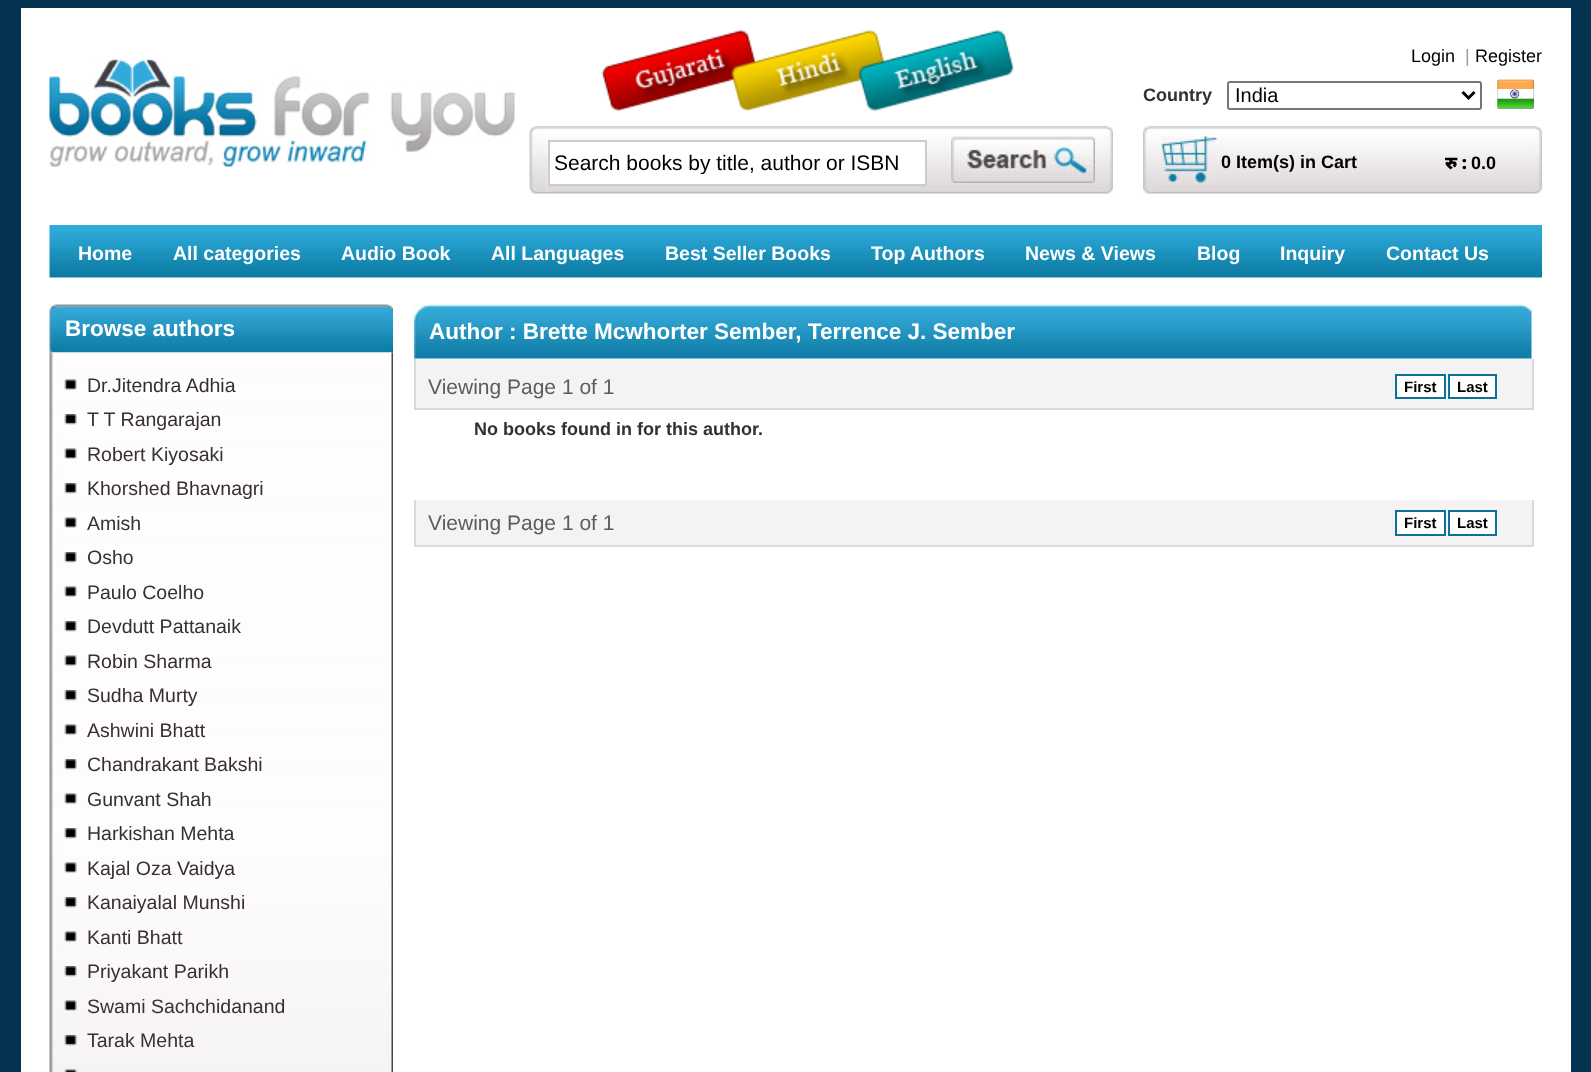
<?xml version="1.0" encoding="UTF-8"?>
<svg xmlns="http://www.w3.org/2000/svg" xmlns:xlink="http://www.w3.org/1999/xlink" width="1591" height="1072">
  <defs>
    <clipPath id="clip1"><rect x="554" y="150" width="367" height="24" /></clipPath>
  </defs>
  <rect width="100%" height="100%" fill="#043351" />
  <rect x="21" y="8" width="1550" height="1064" fill="#ffffff" />
  <image x="49" y="59" width="466" height="108" xlink:href="image1.png" />
  <image x="601" y="30" width="156" height="81" xlink:href="image2.png" />
  <image x="730" y="30" width="156" height="81" xlink:href="image3.png" />
  <image x="858" y="30" width="156" height="81" xlink:href="image4.png" />
  <rect x="1228" y="82" width="253" height="27" rx="2" fill="none" stroke="#767676" stroke-width="2" />
  <path d="M 1462.5 92 l 6 6 l 6 -6" fill="none" stroke="#000000" stroke-width="3" />
  <image x="1497" y="79" width="38" height="30" xlink:href="image5.png" />
  <image x="547" y="126" width="548" height="68" xlink:href="image7.png" />
  <image x="529" y="126" width="19" height="68" xlink:href="image6.png" />
  <rect x="549" y="141" width="377" height="44" fill="#ffffff" stroke="#cccccc" stroke-width="2" />
  <image x="951" y="136" width="144" height="47" xlink:href="image8.png" />
  <image x="1095" y="126" width="18" height="68" xlink:href="image9.png" />
  <image x="1143" y="126" width="18" height="68" xlink:href="image10.png" />
  <image x="1161" y="126" width="363" height="68" xlink:href="image11.png" />
  <image x="1161" y="136" width="56" height="47" xlink:href="image12.png" />
  <image x="1524" y="126" width="18" height="68" xlink:href="image13.png" />
  <image x="49" y="225" width="1493" height="53" xlink:href="image14.png" />
  <image x="49" y="304" width="344" height="49" xlink:href="image15.png" />
  <image x="49" y="352" width="344" height="720" xlink:href="image16.png" />
  <image x="64" y="379" width="13" height="11" xlink:href="image17.png" />
  <image x="64" y="414" width="13" height="11" xlink:href="image18.png" />
  <image x="64" y="448" width="13" height="11" xlink:href="image17.png" />
  <image x="64" y="483" width="13" height="11" xlink:href="image19.png" />
  <image x="64" y="517" width="13" height="11" xlink:href="image20.png" />
  <image x="64" y="552" width="13" height="11" xlink:href="image21.png" />
  <image x="64" y="586" width="13" height="11" xlink:href="image17.png" />
  <image x="64" y="621" width="13" height="11" xlink:href="image21.png" />
  <image x="64" y="655" width="13" height="11" xlink:href="image22.png" />
  <image x="64" y="690" width="13" height="11" xlink:href="image23.png" />
  <image x="64" y="724" width="13" height="11" xlink:href="image24.png" />
  <image x="64" y="759" width="13" height="11" xlink:href="image25.png" />
  <image x="64" y="793" width="13" height="11" xlink:href="image26.png" />
  <image x="64" y="828" width="13" height="11" xlink:href="image21.png" />
  <image x="64" y="862" width="13" height="11" xlink:href="image27.png" />
  <image x="64" y="897" width="13" height="11" xlink:href="image28.png" />
  <image x="64" y="931" width="13" height="11" xlink:href="image29.png" />
  <image x="64" y="966" width="13" height="11" xlink:href="image30.png" />
  <image x="64" y="1000" width="13" height="11" xlink:href="image31.png" />
  <image x="64" y="1035" width="13" height="11" xlink:href="image32.png" />
  <image x="64" y="1069" width="13" height="3" xlink:href="image33.png" />
  <image x="414" y="304" width="1118" height="55" xlink:href="image34.png" />
  <rect x="416" y="359" width="1116" height="49" fill="#f4f2f3" />
  <rect x="1532" y="359" width="2" height="51" fill="#d9dada" />
  <rect x="414" y="408" width="1119" height="2" fill="#d9dada" />
  <rect x="414" y="359" width="2" height="51" fill="#d9dada" />
  <rect x="1396" y="375" width="49" height="23" fill="#ffffff" stroke="#0b7196" stroke-width="2" />
  <rect x="1449" y="375" width="47" height="23" fill="#ffffff" stroke="#0b7196" stroke-width="2" />
  <rect x="416" y="500" width="1116" height="45" fill="#f4f2f3" />
  <rect x="1532" y="500" width="2" height="46" fill="#d9dada" />
  <rect x="414" y="545" width="1119" height="2" fill="#d9dada" />
  <rect x="414" y="500" width="2" height="46" fill="#d9dada" />
  <rect x="1396" y="511" width="49" height="24" fill="#ffffff" stroke="#0b7196" stroke-width="2" />
  <rect x="1449" y="511" width="47" height="24" fill="#ffffff" stroke="#0b7196" stroke-width="2" />
  <text x="1411" y="62" style="font-family: Liberation Sans; font-size: 18px; fill: #000000">Login</text>
  <text x="1465" y="62" style="font-family: Liberation Sans; font-size: 18px; fill: #999999">|</text>
  <text x="1475" y="62" style="font-family: Liberation Sans; font-size: 18px; fill: #000000">Register</text>
  <text x="1143" y="101" style="font-family: Liberation Sans; font-size: 18px; font-weight: bold; fill: #313131">Country</text>
  <text x="1235" y="102" style="font-family: Liberation Sans; font-size: 20px; fill: #000000">India</text>
  <g clip-path="url(#clip1)">
    <text x="554" y="170" style="font-family: Liberation Sans; font-size: 21px; fill: #000000">Search books by title, author or ISBN</text>
  </g>
  <text x="1221" y="168" style="font-family: Liberation Sans; font-size: 18px; font-weight: bold; fill: #000000">0 Item(s) in Cart</text>
  <text x="1445" y="169" style="font-family: Noto Sans; font-size: 18px; font-weight: 900; fill: #000000">रु :</text>
  <text x="1471" y="169" style="font-family: Liberation Sans; font-size: 18px; font-weight: bold; fill: #000000">0.0</text>
  <text x="78" y="260" style="font-family: Liberation Sans; font-size: 19.5px; font-weight: bold; fill: #ffffff">Home</text>
  <text x="173" y="260" style="font-family: Liberation Sans; font-size: 19.5px; font-weight: bold; fill: #ffffff">All categories</text>
  <text x="341" y="260" style="font-family: Liberation Sans; font-size: 19.5px; font-weight: bold; fill: #ffffff">Audio Book</text>
  <text x="491" y="260" style="font-family: Liberation Sans; font-size: 19.5px; font-weight: bold; fill: #ffffff">All Languages</text>
  <text x="665" y="260" style="font-family: Liberation Sans; font-size: 19.5px; font-weight: bold; fill: #ffffff">Best Seller Books</text>
  <text x="871" y="260" style="font-family: Liberation Sans; font-size: 19.5px; font-weight: bold; fill: #ffffff">Top Authors</text>
  <text x="1025" y="260" style="font-family: Liberation Sans; font-size: 19.5px; font-weight: bold; fill: #ffffff">News &amp; Views</text>
  <text x="1197" y="260" style="font-family: Liberation Sans; font-size: 19.5px; font-weight: bold; fill: #ffffff">Blog</text>
  <text x="1280" y="260" style="font-family: Liberation Sans; font-size: 19.5px; font-weight: bold; fill: #ffffff">Inquiry</text>
  <text x="1386" y="260" style="font-family: Liberation Sans; font-size: 19.5px; font-weight: bold; fill: #ffffff">Contact Us</text>
  <text x="65" y="336" style="font-family: Liberation Sans; font-size: 22.5px; font-weight: bold; fill: #ffffff">Browse authors</text>
  <text x="87" y="392" style="font-family: Liberation Sans; font-size: 19.5px; fill: #382f2f">Dr.Jitendra Adhia</text>
  <text x="87" y="426" style="font-family: Liberation Sans; font-size: 19.5px; fill: #382f2f">T T Rangarajan</text>
  <text x="87" y="461" style="font-family: Liberation Sans; font-size: 19.5px; fill: #382f2f">Robert Kiyosaki</text>
  <text x="87" y="495" style="font-family: Liberation Sans; font-size: 19.5px; fill: #382f2f">Khorshed Bhavnagri</text>
  <text x="87" y="530" style="font-family: Liberation Sans; font-size: 19.5px; fill: #382f2f">Amish</text>
  <text x="87" y="564" style="font-family: Liberation Sans; font-size: 19.5px; fill: #382f2f">Osho</text>
  <text x="87" y="599" style="font-family: Liberation Sans; font-size: 19.5px; fill: #382f2f">Paulo Coelho</text>
  <text x="87" y="633" style="font-family: Liberation Sans; font-size: 19.5px; fill: #382f2f">Devdutt Pattanaik</text>
  <text x="87" y="668" style="font-family: Liberation Sans; font-size: 19.5px; fill: #382f2f">Robin Sharma</text>
  <text x="87" y="702" style="font-family: Liberation Sans; font-size: 19.5px; fill: #382f2f">Sudha Murty</text>
  <text x="87" y="737" style="font-family: Liberation Sans; font-size: 19.5px; fill: #382f2f">Ashwini Bhatt</text>
  <text x="87" y="771" style="font-family: Liberation Sans; font-size: 19.5px; fill: #382f2f">Chandrakant Bakshi</text>
  <text x="87" y="806" style="font-family: Liberation Sans; font-size: 19.5px; fill: #382f2f">Gunvant Shah</text>
  <text x="87" y="840" style="font-family: Liberation Sans; font-size: 19.5px; fill: #382f2f">Harkishan Mehta</text>
  <text x="87" y="875" style="font-family: Liberation Sans; font-size: 19.5px; fill: #382f2f">Kajal Oza Vaidya</text>
  <text x="87" y="909" style="font-family: Liberation Sans; font-size: 19.5px; fill: #382f2f">Kanaiyalal Munshi</text>
  <text x="87" y="944" style="font-family: Liberation Sans; font-size: 19.5px; fill: #382f2f">Kanti Bhatt</text>
  <text x="87" y="978" style="font-family: Liberation Sans; font-size: 19.5px; fill: #382f2f">Priyakant Parikh</text>
  <text x="87" y="1013" style="font-family: Liberation Sans; font-size: 19.5px; fill: #382f2f">Swami Sachchidanand</text>
  <text x="87" y="1047" style="font-family: Liberation Sans; font-size: 19.5px; fill: #382f2f">Tarak Mehta</text>
  <text x="429" y="339" style="font-family: Liberation Sans; font-size: 22.5px; font-weight: bold; fill: #ffffff">Author : Brette Mcwhorter Sember, Terrence J. Sember</text>
  <text x="428" y="394" style="font-family: Liberation Sans; font-size: 21px; fill: #5d5c5c">Viewing Page 1 of 1</text>
  <text x="1404" y="392" style="font-family: Liberation Sans; font-size: 15px; font-weight: bold; fill: #000000">First</text>
  <text x="1457" y="392" style="font-family: Liberation Sans; font-size: 15px; font-weight: bold; fill: #000000">Last</text>
  <text x="474" y="435" style="font-family: Liberation Sans; font-size: 18px; font-weight: bold; fill: #313131">No books found in for this author.</text>
  <text x="428" y="530" style="font-family: Liberation Sans; font-size: 21px; fill: #5d5c5c">Viewing Page 1 of 1</text>
  <text x="1404" y="528" style="font-family: Liberation Sans; font-size: 15px; font-weight: bold; fill: #000000">First</text>
  <text x="1457" y="528" style="font-family: Liberation Sans; font-size: 15px; font-weight: bold; fill: #000000">Last</text>
</svg>
